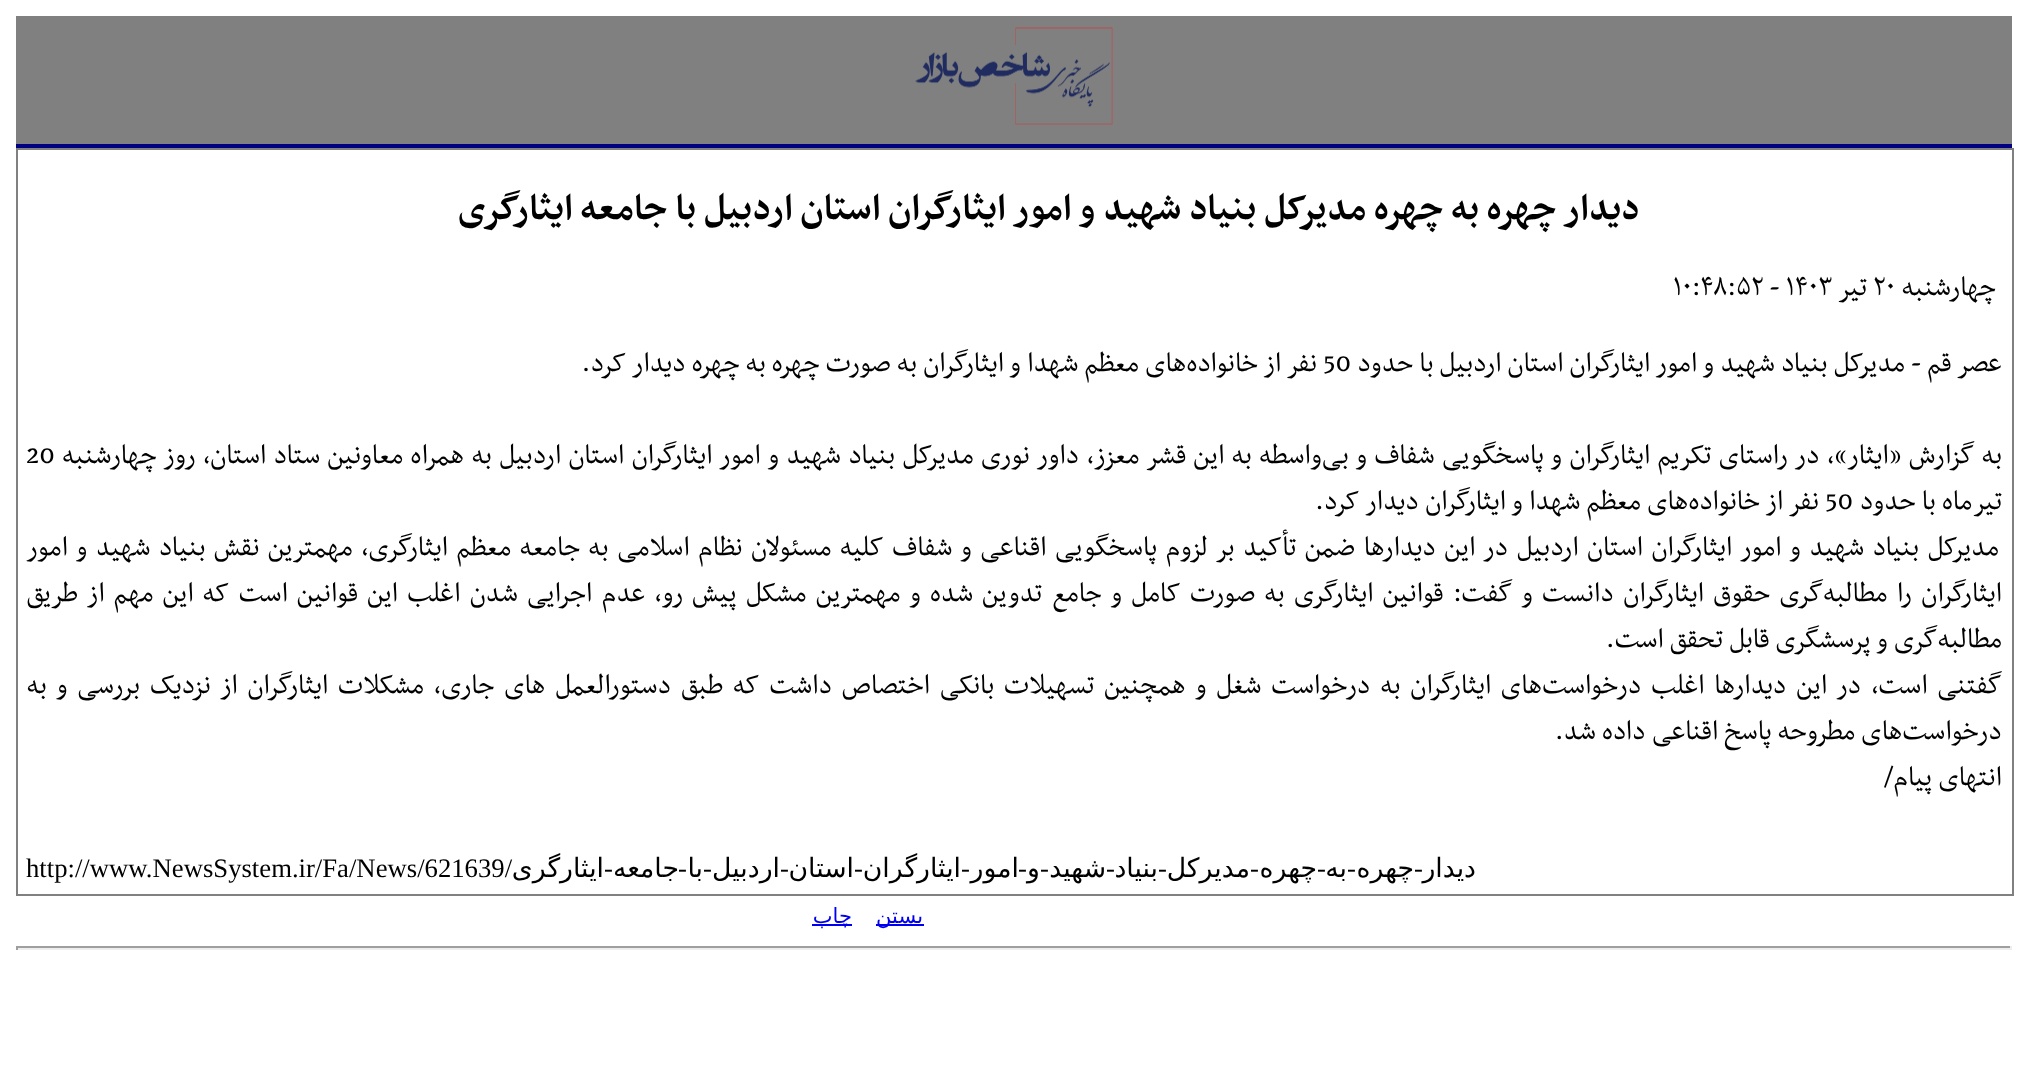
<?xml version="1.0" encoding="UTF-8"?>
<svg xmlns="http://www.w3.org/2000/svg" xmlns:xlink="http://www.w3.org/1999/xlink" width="2027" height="1092">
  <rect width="100%" height="100%" fill="#ffffff" />
  <rect x="16" y="16" width="1996" height="128" fill="#808080" />
  <rect x="16" y="144" width="1996" height="4" fill="#000080" />
  <image x="915" y="27" width="198" height="98" xlink:href="image1.png" />
  <rect x="16" y="148" width="1998" height="2" fill="#808080" />
  <rect x="2012" y="148" width="2" height="748" fill="#808080" />
  <rect x="16" y="894" width="1998" height="2" fill="#808080" />
  <rect x="16" y="148" width="2" height="748" fill="#808080" />
  <rect x="876" y="924" width="48" height="2" fill="#0000ee" />
  <rect x="812" y="924" width="40" height="2" fill="#0000ee" />
  <rect x="16" y="946" width="1996" height="2" fill="#9f9f9f" />
  <rect x="2010" y="946" width="2" height="4" fill="#eeeeee" />
  <rect x="16" y="948" width="1996" height="2" fill="#eeeeee" />
  <rect x="16" y="946" width="2" height="4" fill="#9f9f9f" />
  <text x="1640" y="219" style="font-family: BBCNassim; font-size: 42.7px; font-weight: bold; direction: rtl; fill: #000000">دیدار چهره به چهره مدیرکل بنیاد شهید و امور ایثارگران استان اردبیل با جامعه ایثارگری</text>
  <text x="1996" y="295" style="font-family: BBCNassim; font-size: 32px; direction: rtl; fill: #000000">چهارشنبه</text>
  <text x="1873" y="295" style="font-family: BBCNassim; font-size: 32px; fill: #000000">۲۰</text>
  <text x="1867" y="295" style="font-family: BBCNassim; font-size: 32px; direction: rtl; fill: #000000">تير</text>
  <text x="1673" y="295" style="font-family: BBCNassim; font-size: 32px; fill: #000000">۱۰:۴۸:۵۲ - ۱۴۰۳</text>
  <text x="2002" y="371" style="font-family: BBCNassim; font-size: 32px; direction: rtl; fill: #000000">عصر قم - مدیرکل بنیاد شهید و امور ایثارگران استان اردبیل با حدود</text>
  <text x="1323" y="371" style="font-family: BBCNassim; font-size: 32px; fill: #000000">50</text>
  <text x="1317" y="371" style="font-family: BBCNassim; font-size: 32px; direction: rtl; fill: #000000">نفر از خانواده‌های معظم شهدا و ایثارگران به صورت چهره به چهره دیدار کرد.</text>
  <text x="2002" y="463" word-spacing="1.3" style="font-family: BBCNassim; font-size: 32px; direction: rtl; fill: #000000">به گزارش «ایثار»، در راستای تکریم ایثارگران و پاسخگویی شفاف و بی‌واسطه به این قشر معزز، داور نوری مدیرکل بنیاد شهید و امور ایثارگران استان اردبیل به همراه معاونین ستاد استان، روز چهارشنبه</text>
  <text x="26" y="463" style="font-family: BBCNassim; font-size: 32px; fill: #000000">20</text>
  <text x="2002" y="509" style="font-family: BBCNassim; font-size: 32px; direction: rtl; fill: #000000">تیرماه با حدود</text>
  <text x="1825" y="509" style="font-family: BBCNassim; font-size: 32px; fill: #000000">50</text>
  <text x="1819" y="509" style="font-family: BBCNassim; font-size: 32px; direction: rtl; fill: #000000">نفر از خانواده‌های معظم شهدا و ایثارگران دیدار کرد.</text>
  <text x="1999" y="555" word-spacing="2.4" style="font-family: BBCNassim; font-size: 32px; direction: rtl; fill: #000000">مدیرکل بنیاد شهید و امور ایثارگران استان اردبیل در این دیدارها ضمن تأکید بر لزوم پاسخگویی اقناعی و شفاف کلیه مسئولان نظام اسلامی به جامعه معظم ایثارگری، مهمترین نقش بنیاد شهید و امور</text>
  <text x="2002" y="601" word-spacing="3.2" style="font-family: BBCNassim; font-size: 32px; direction: rtl; fill: #000000">ایثارگران را مطالبه‌گری حقوق ایثارگران دانست و گفت: قوانین ایثارگری به صورت کامل و جامع تدوین شده و مهمترین مشکل پیش رو، عدم اجرایی شدن اغلب این قوانین است که این مهم از طریق</text>
  <text x="2002" y="647" style="font-family: BBCNassim; font-size: 32px; direction: rtl; fill: #000000">مطالبه‌گری و پرسشگری قابل تحقق است.</text>
  <text x="2002" y="693" word-spacing="3.7" style="font-family: BBCNassim; font-size: 32px; direction: rtl; fill: #000000">گفتنی است، در این دیدارها اغلب درخواست‌های ایثارگران به درخواست شغل و همچنین تسهیلات بانکی اختصاص داشت که طبق دستورالعمل های جاری، مشکلات ایثارگران از نزدیک بررسی و به</text>
  <text x="2002" y="739" style="font-family: BBCNassim; font-size: 32px; direction: rtl; fill: #000000">درخواست‌های مطروحه پاسخ اقناعی داده شد.</text>
  <text x="2002" y="785" style="font-family: BBCNassim; font-size: 32px; direction: rtl; fill: #000000">انتهای پیام/</text>
  <text x="1423" y="877" style="font-family: Liberation Serif; font-size: 26.7px; direction: rtl; fill: #000000">-</text>
  <text x="1476" y="877" style="font-family: DejaVu Sans; font-size: 26.7px; direction: rtl; fill: #000000">دیدار</text>
  <text x="1414" y="877" style="font-family: DejaVu Sans; font-size: 26.7px; direction: rtl; fill: #000000">چهره</text>
  <text x="1356" y="877" style="font-family: Liberation Serif; font-size: 26.7px; direction: rtl; fill: #000000">-</text>
  <text x="1347" y="877" style="font-family: DejaVu Sans; font-size: 26.7px; direction: rtl; fill: #000000">به</text>
  <text x="1326" y="877" style="font-family: Liberation Serif; font-size: 26.7px; direction: rtl; fill: #000000">-</text>
  <text x="1317" y="877" style="font-family: DejaVu Sans; font-size: 26.7px; direction: rtl; fill: #000000">چهره</text>
  <text x="1259" y="877" style="font-family: Liberation Serif; font-size: 26.7px; direction: rtl; fill: #000000">-</text>
  <text x="1250" y="877" style="font-family: DejaVu Sans; font-size: 26.7px; direction: rtl; fill: #000000">مدیرکل</text>
  <text x="1167" y="877" style="font-family: Liberation Serif; font-size: 26.7px; direction: rtl; fill: #000000">-</text>
  <text x="1158" y="877" style="font-family: DejaVu Sans; font-size: 26.7px; direction: rtl; fill: #000000">بنیاد</text>
  <text x="1115" y="877" style="font-family: Liberation Serif; font-size: 26.7px; direction: rtl; fill: #000000">-</text>
  <text x="1106" y="877" style="font-family: DejaVu Sans; font-size: 26.7px; direction: rtl; fill: #000000">شهید</text>
  <text x="1049" y="877" style="font-family: Liberation Serif; font-size: 26.7px; direction: rtl; fill: #000000">-</text>
  <text x="1027" y="877" style="font-family: Liberation Serif; font-size: 26.7px; direction: rtl; fill: #000000">-</text>
  <text x="1040" y="877" style="font-family: DejaVu Sans; font-size: 26.7px; direction: rtl; fill: #000000">و</text>
  <text x="970" y="877" style="font-family: Liberation Serif; font-size: 26.7px; direction: rtl; fill: #000000">-</text>
  <text x="1019" y="877" style="font-family: DejaVu Sans; font-size: 26.7px; direction: rtl; fill: #000000">امور</text>
  <text x="961" y="877" style="font-family: DejaVu Sans; font-size: 26.7px; direction: rtl; fill: #000000">ایثارگران</text>
  <text x="863" y="877" style="font-family: Liberation Serif; font-size: 26.7px; direction: rtl; fill: #000000">-</text>
  <text x="854" y="877" style="font-family: DejaVu Sans; font-size: 26.7px; direction: rtl; fill: #000000">استان</text>
  <text x="789" y="877" style="font-family: Liberation Serif; font-size: 26.7px; direction: rtl; fill: #000000">-</text>
  <text x="780" y="877" style="font-family: DejaVu Sans; font-size: 26.7px; direction: rtl; fill: #000000">اردبیل</text>
  <text x="712" y="877" style="font-family: Liberation Serif; font-size: 26.7px; direction: rtl; fill: #000000">-</text>
  <text x="703" y="877" style="font-family: DejaVu Sans; font-size: 26.7px; direction: rtl; fill: #000000">با</text>
  <text x="687" y="877" style="font-family: Liberation Serif; font-size: 26.7px; direction: rtl; fill: #000000">-</text>
  <text x="679" y="877" style="font-family: DejaVu Sans; font-size: 26.7px; direction: rtl; fill: #000000">جامعه</text>
  <text x="613" y="877" style="font-family: Liberation Serif; font-size: 26.7px; direction: rtl; fill: #000000">-</text>
  <text x="604" y="877" style="font-family: DejaVu Sans; font-size: 26.7px; direction: rtl; fill: #000000">ایثارگری</text>
  <text x="26" y="877" style="font-family: Liberation Serif; font-size: 26.7px; fill: #000000">http://www.NewsSystem.ir/Fa/News/621639/</text>
  <text x="923" y="923" style="font-family: DejaVu Sans; font-size: 21px; direction: rtl; fill: #0000ee">بستن</text>
  <text x="852" y="923" style="font-family: DejaVu Sans; font-size: 21px; direction: rtl; fill: #0000ee">چاپ</text>
</svg>
